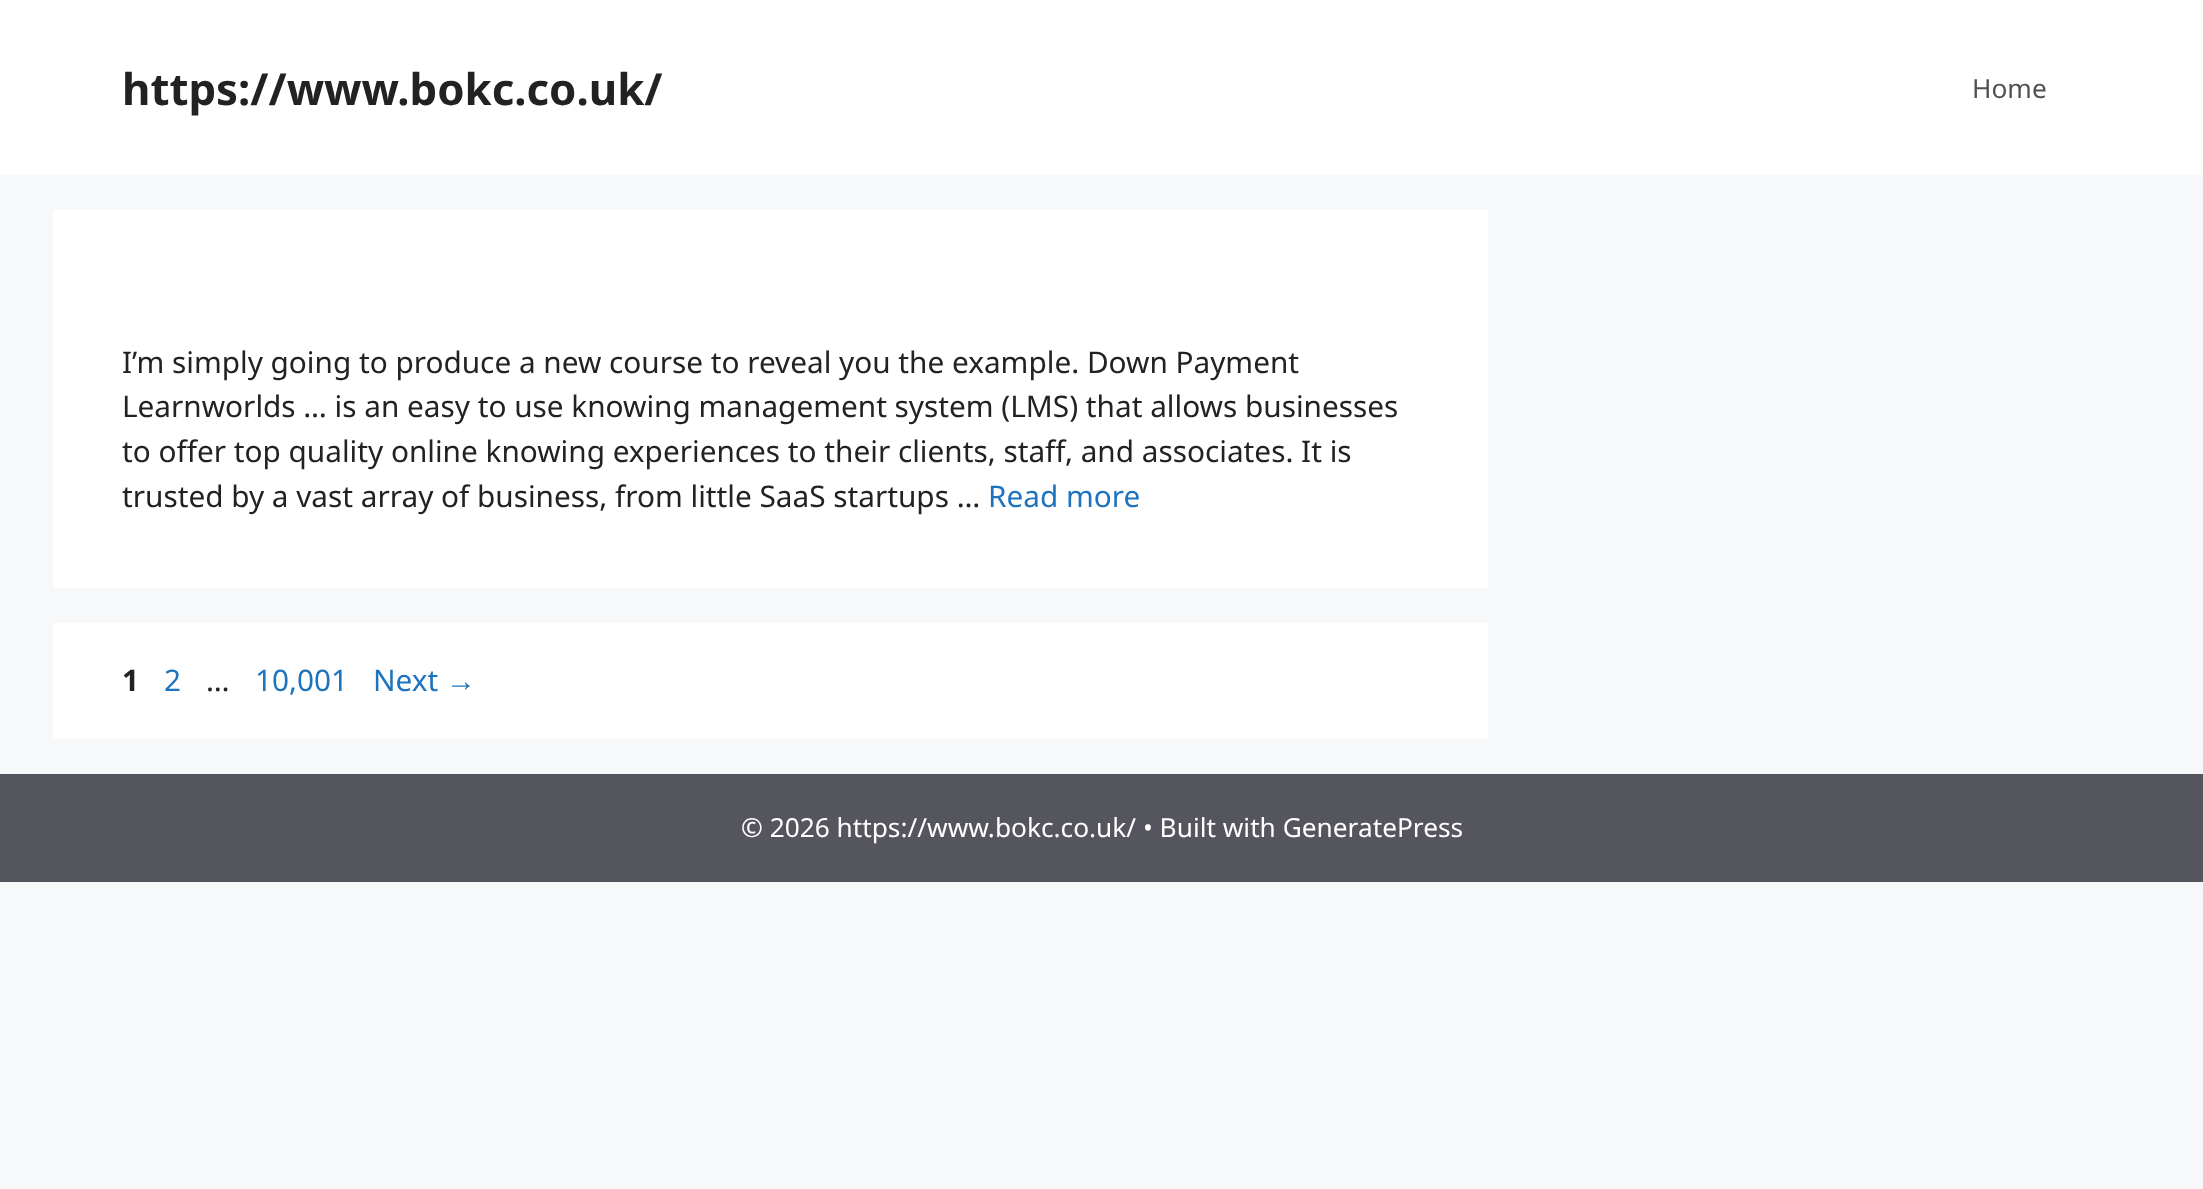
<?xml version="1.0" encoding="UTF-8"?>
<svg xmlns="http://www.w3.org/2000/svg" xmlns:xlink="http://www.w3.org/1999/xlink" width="2203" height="1189">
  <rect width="100%" height="100%" fill="#f7f8f9" />
  <rect width="2203" height="175" fill="#ffffff" />
  <rect x="53" y="210" width="1435" height="378" fill="#ffffff" />
  <rect x="53" y="623" width="1435" height="116" fill="#ffffff" />
  <rect y="774" width="2203" height="108" fill="#55555e" />
  <text x="122" y="105" style="font-family: Noto Sans; font-size: 43.75px; font-weight: bold; fill: #222222">https://www.bokc.co.uk/</text>
  <text x="1972" y="98" style="font-family: Noto Sans; font-size: 26.25px; fill: #515151">Home</text>
  <text x="122" y="373" style="font-family: Noto Sans; font-size: 29.75px; fill: #222222">I’m simply going to produce a new course to reveal you the example. Down Payment</text>
  <text x="122" y="417" style="font-family: Noto Sans; font-size: 29.75px; fill: #222222">Learnworlds … is an easy to use knowing management system (LMS) that allows businesses</text>
  <text x="122" y="462" style="font-family: Noto Sans; font-size: 29.75px; fill: #222222">to offer top quality online knowing experiences to their clients, staff, and associates. It is</text>
  <text x="122" y="507" style="font-family: Noto Sans; font-size: 29.75px; fill: #222222">trusted by a vast array of business, from little SaaS startups …</text>
  <text x="988" y="507" style="font-family: Noto Sans; font-size: 29.75px; fill: #1e73be">Read more</text>
  <text x="122" y="691" style="font-family: Noto Sans; font-size: 29.75px; font-weight: bold; fill: #222222">1</text>
  <text x="164" y="691" style="font-family: Noto Sans; font-size: 29.75px; fill: #1e73be">2</text>
  <text x="206" y="691" style="font-family: Noto Sans; font-size: 29.75px; fill: #222222">…</text>
  <text x="255" y="691" style="font-family: Noto Sans; font-size: 29.75px; fill: #1e73be">10,001</text>
  <text x="373" y="691" style="font-family: Noto Sans; font-size: 29.75px; fill: #1e73be">Next</text>
  <text x="446" y="691" style="font-family: Liberation Sans; font-size: 29.75px; fill: #1e73be">→</text>
  <text x="741" y="837" style="font-family: Noto Sans; font-size: 26.25px; fill: #ffffff">© 2026 https://www.bokc.co.uk/ • Built with GeneratePress</text>
</svg>
